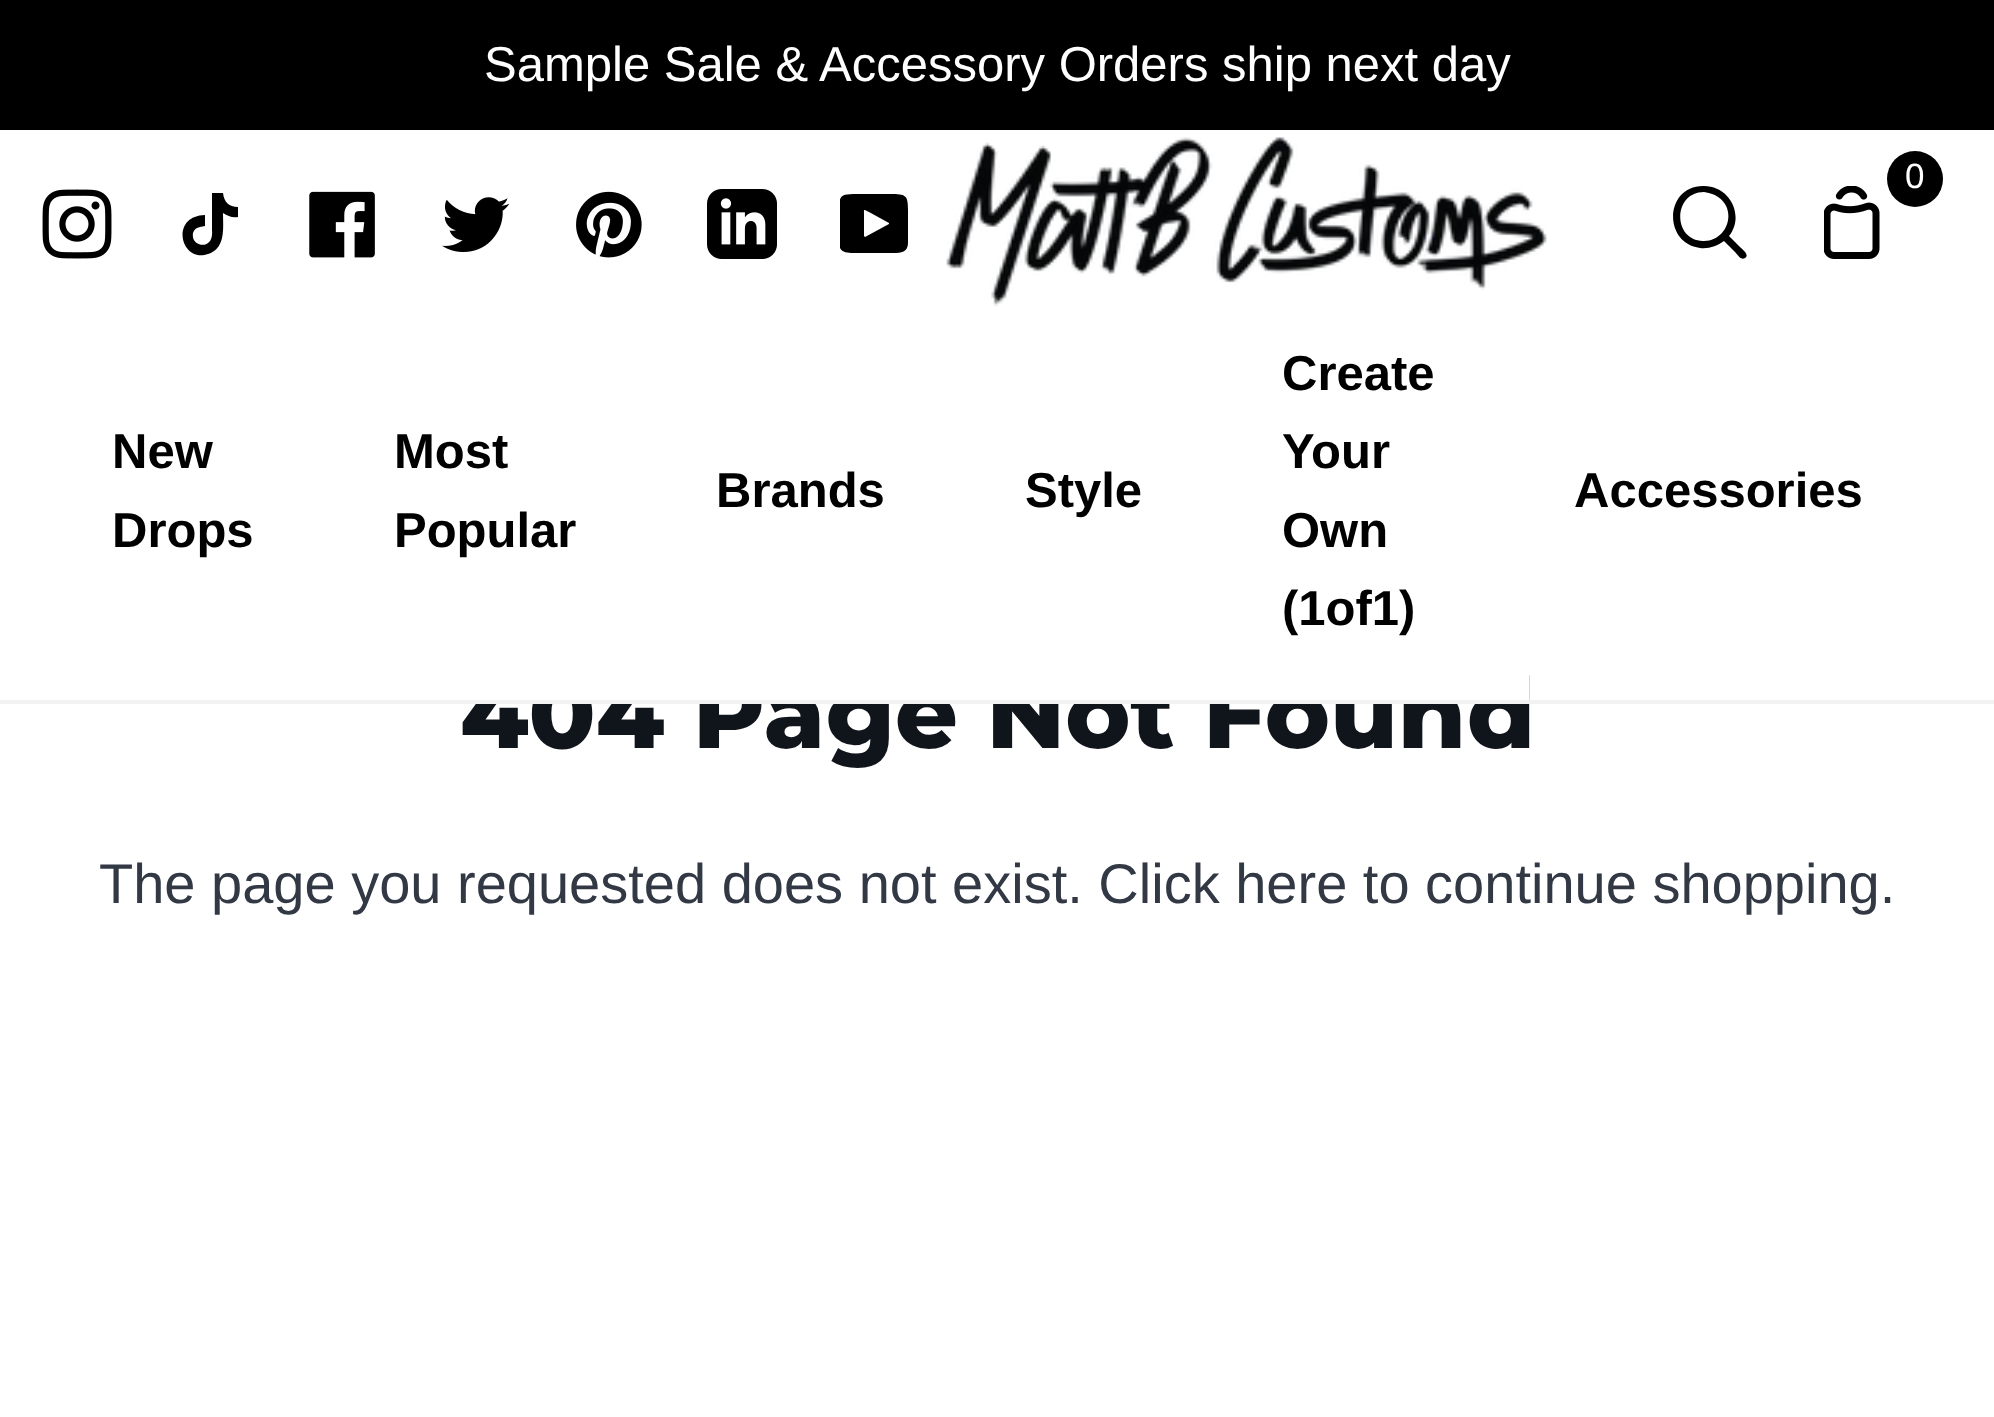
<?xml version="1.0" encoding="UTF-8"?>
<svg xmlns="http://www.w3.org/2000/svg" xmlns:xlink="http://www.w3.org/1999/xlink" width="1994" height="1417">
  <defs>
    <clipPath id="clip1"><rect x="840" y="189" width="70" height="70" /></clipPath>
  </defs>
  <rect width="100%" height="100%" fill="#ffffff" />
  <rect width="1994" height="130" fill="#000000" />
  <image x="946" y="137" width="601" height="170" xlink:href="image1.png" />
  <circle cx="1915" cy="179" r="28" fill="#000000" />
  <image x="1824" y="186" width="56" height="73" xlink:href="image2.png" />
  <path d="M 1704 186 c 26 0 41 30 25 50 l 11 11 c 2 2 10 8 5 11 c -4 3 -8 -4 -10 -6 l -11 -11 c -7 5 -15 8 -24 7 c -38 -5 -35 -63 4 -62 z m 0 6 c -31 0 -32 48 -1 49 c 24 1 35 -31 15 -44 c -4 -3 -9 -4 -14 -5 z" fill="#000000" />
  <image x="42" y="189" width="70" height="70" xlink:href="image3.png" />
  <path d="M 223 193 c 1 9 6 14 15 14 v 10 c -6 1 -10 -1 -15 -4 c 0 15 3 35 -15 41 c -27 10 -39 -38 -3 -39 v 11 l -5 1 c -5 1 -8 5 -7 10 c 1 10 21 13 19 -7 v -37 z" fill="#000000" fill-rule="evenodd" />
  <image x="309" y="191" width="66" height="67" xlink:href="image4.png" />
  <image x="442" y="197" width="68" height="55" xlink:href="image5.png" />
  <image x="576" y="191" width="66" height="67" xlink:href="image6.png" />
  <image x="707" y="189" width="70" height="70" xlink:href="image7.png" />
  <g clip-path="url(#clip1)">
    <path d="M 839 243 c 0 11 10 10 18 10 h 33 c 8 0 18 1 18 -10 v -33 c 0 -15 -2 -16 -18 -16 h -33 c -16 0 -18 1 -18 16 z m 25 -7 v -21 c 0 -6 -1 -6 5 -3 l 20 11 v 1 l -24 13 z" fill="#000000" />
  </g>
  <text x="484" y="81" style="font-family: Liberation Sans; font-size: 49px; fill: #ffffff">Sample Sale &amp; Accessory Orders ship next day</text>
  <text x="1905" y="188" style="font-family: Liberation Sans; font-size: 35px; fill: #ffffff">0</text>
  <text x="112" y="468" style="font-family: Liberation Sans; font-size: 49px; font-weight: bold; fill: #000000">New</text>
  <text x="112" y="547" style="font-family: Liberation Sans; font-size: 49px; font-weight: bold; fill: #000000">Drops</text>
  <text x="394" y="468" style="font-family: Liberation Sans; font-size: 49px; font-weight: bold; fill: #000000">Most</text>
  <text x="394" y="547" style="font-family: Liberation Sans; font-size: 49px; font-weight: bold; fill: #000000">Popular</text>
  <text x="716" y="507" style="font-family: Liberation Sans; font-size: 49px; font-weight: bold; fill: #000000">Brands</text>
  <text x="1025" y="507" style="font-family: Liberation Sans; font-size: 49px; font-weight: bold; fill: #000000">Style</text>
  <text x="1282" y="390" style="font-family: Liberation Sans; font-size: 49px; font-weight: bold; fill: #000000">Create</text>
  <text x="1282" y="468" style="font-family: Liberation Sans; font-size: 49px; font-weight: bold; fill: #000000">Your</text>
  <text x="1282" y="547" style="font-family: Liberation Sans; font-size: 49px; font-weight: bold; fill: #000000">Own</text>
  <text x="1282" y="625" style="font-family: Liberation Sans; font-size: 49px; font-weight: bold; fill: #000000">(1of1)</text>
  <text x="1574" y="507" style="font-family: Liberation Sans; font-size: 49px; font-weight: bold; fill: #000000">Accessories</text>
  <text x="460" y="748" style="font-family: Montserrat; font-size: 98px; font-weight: 800; fill: #10141b">404 Page Not Found</text>
  <rect x="478" y="675" width="1051" height="25" fill="#ffffff" />
  <rect y="700" width="1994" height="4" fill="#f2f2f2" />
  <text x="99" y="903" style="font-family: Liberation Sans; font-size: 56px; fill: #323945">The page you requested does not exist. Click here to continue shopping.</text>
</svg>
